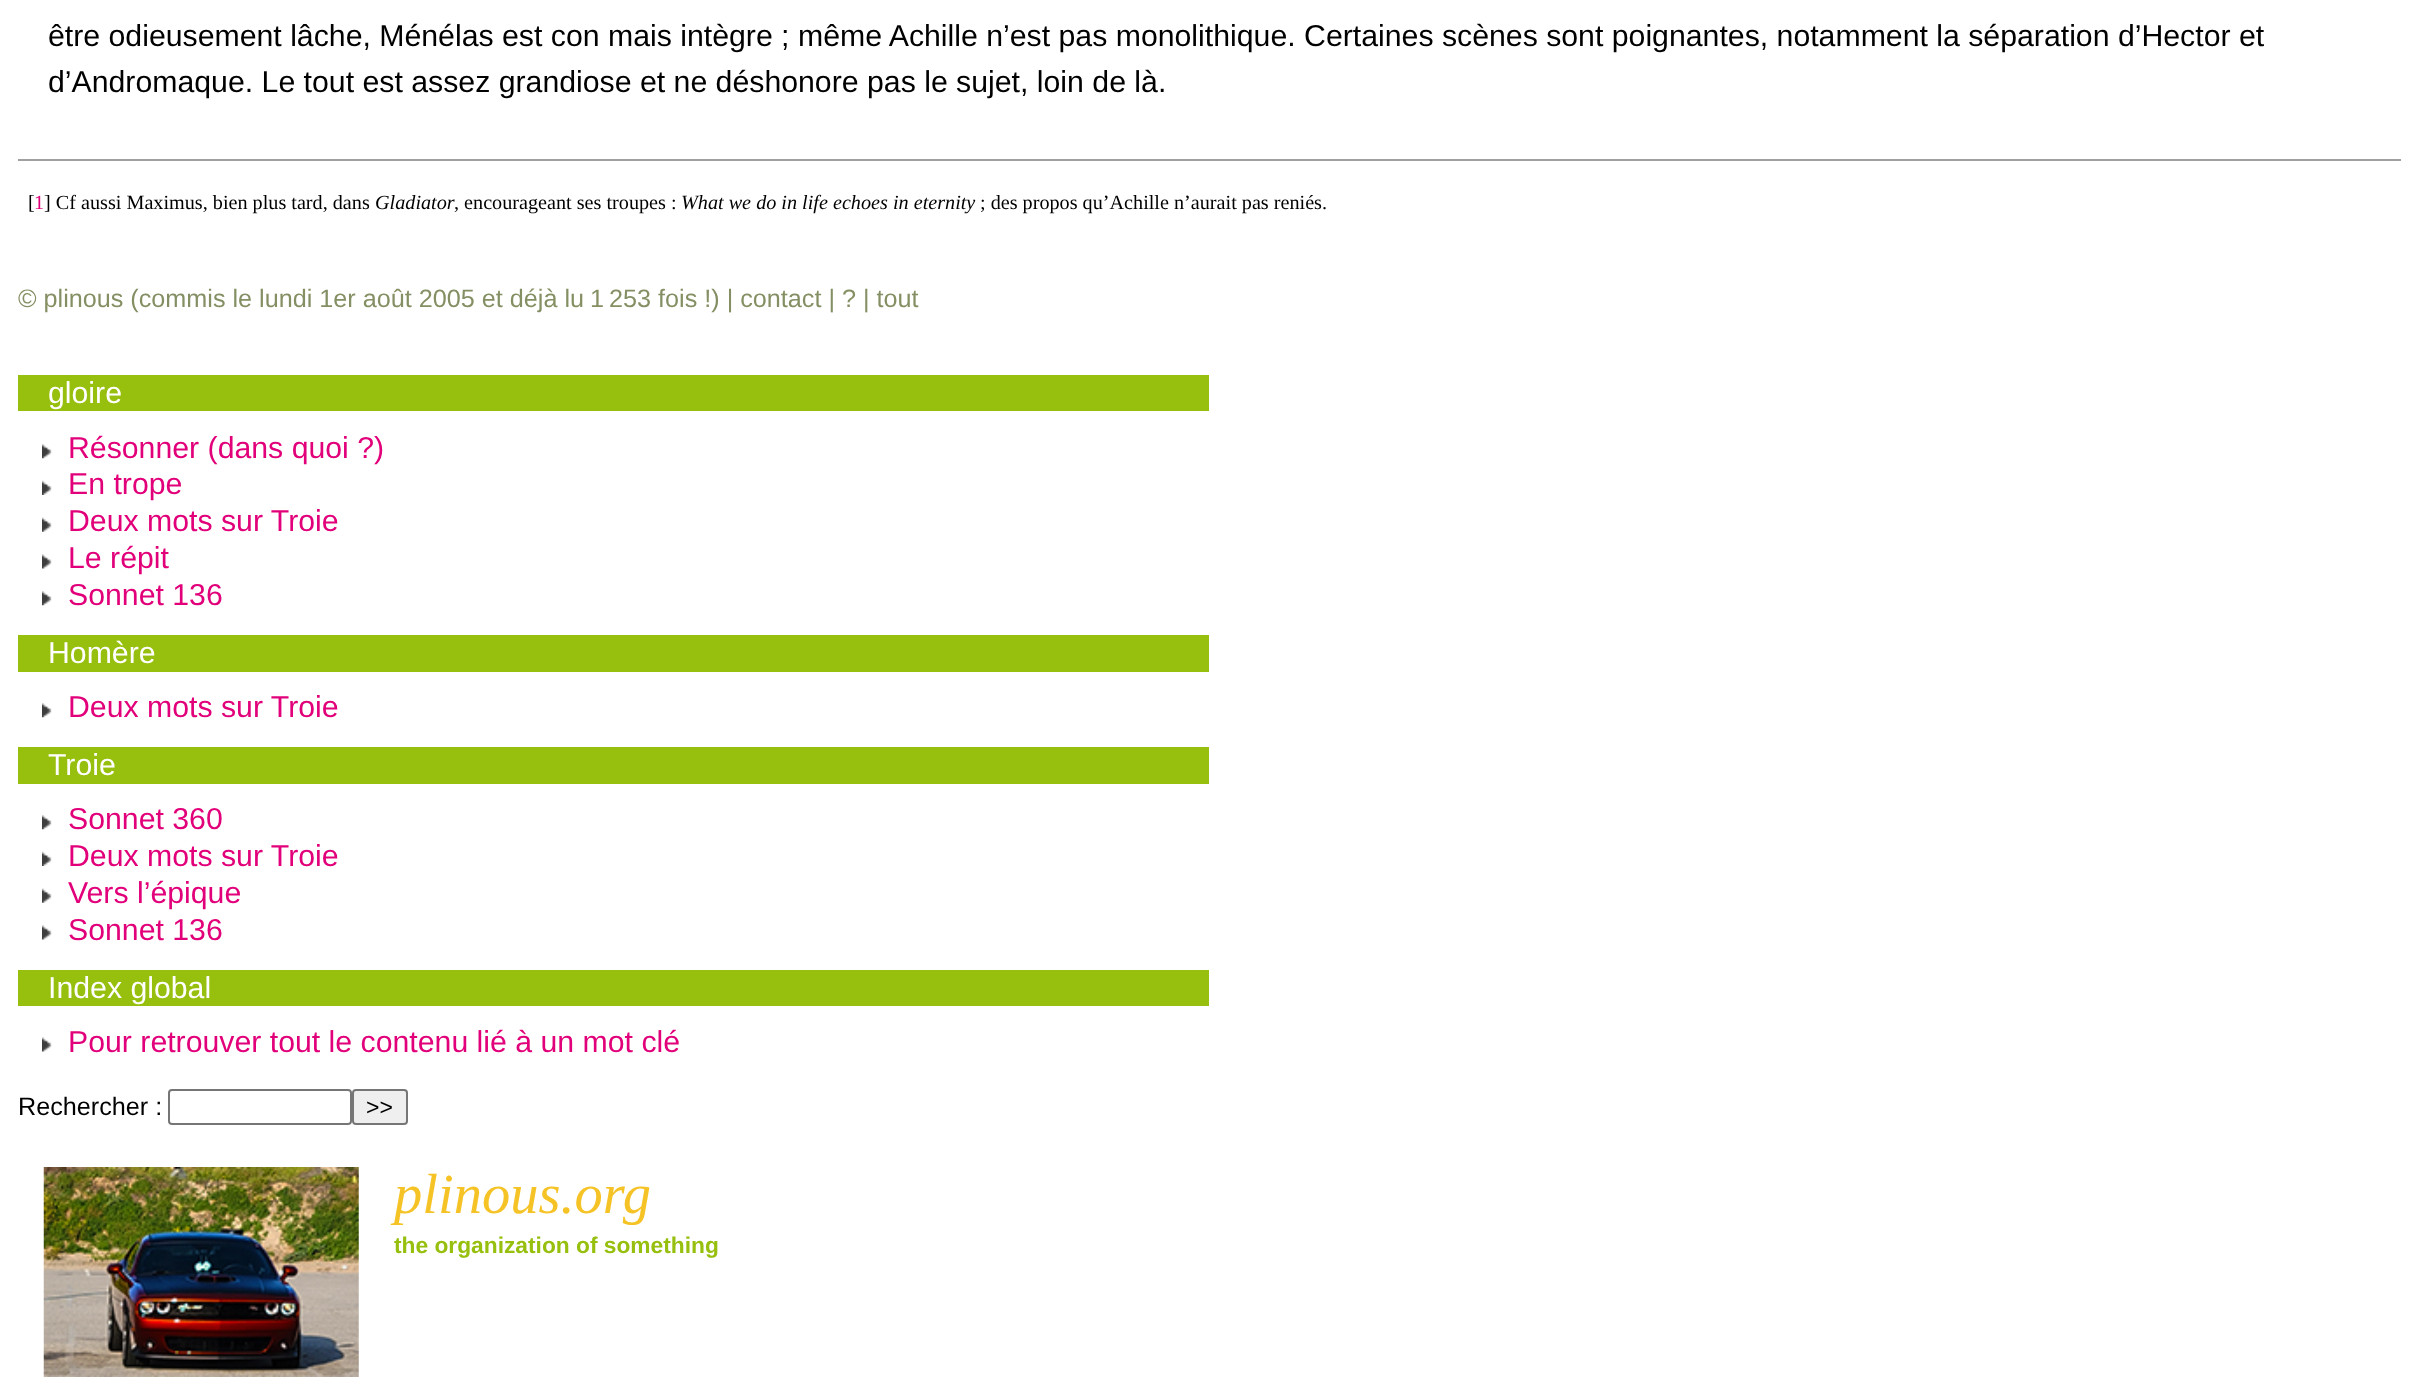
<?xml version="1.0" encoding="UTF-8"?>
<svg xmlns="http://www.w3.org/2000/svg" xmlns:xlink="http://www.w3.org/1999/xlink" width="2417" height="1377">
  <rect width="100%" height="100%" fill="#ffffff" />
  <rect x="18" y="159" width="2383" height="2" fill="#a0a0a0" />
  <rect x="18" y="375" width="1191" height="36" fill="#97bf0d" />
  <image x="42" y="444" width="10" height="15" xlink:href="image1.png" />
  <image x="42" y="480" width="10" height="15" xlink:href="image2.png" />
  <image x="42" y="517" width="10" height="15" xlink:href="image3.png" />
  <image x="42" y="554" width="10" height="15" xlink:href="image4.png" />
  <image x="42" y="591" width="10" height="15" xlink:href="image1.png" />
  <rect x="18" y="635" width="1191" height="37" fill="#97bf0d" />
  <image x="42" y="703" width="10" height="15" xlink:href="image1.png" />
  <rect x="18" y="747" width="1191" height="37" fill="#97bf0d" />
  <image x="42" y="815" width="10" height="15" xlink:href="image1.png" />
  <image x="42" y="851" width="10" height="15" xlink:href="image2.png" />
  <image x="42" y="888" width="10" height="15" xlink:href="image3.png" />
  <image x="42" y="925" width="10" height="15" xlink:href="image4.png" />
  <rect x="18" y="970" width="1191" height="36" fill="#97bf0d" />
  <image x="42" y="1037" width="10" height="15" xlink:href="image4.png" />
  <rect x="169" y="1090" width="182" height="34" rx="3" fill="none" stroke="#767676" stroke-width="2" />
  <rect x="353" y="1090" width="54" height="34" rx="3" fill="#efefef" stroke="#767676" stroke-width="2" />
  <image x="43" y="1167" width="316" height="210" xlink:href="image5.png" />
  <text x="48" y="46" style="font-family: Liberation Sans; font-size: 30.25px; fill: #000000">être odieusement lâche, Ménélas est con mais intègre ; même Achille n’est pas monolithique. Certaines scènes sont poignantes, notamment la séparation d’Hector et</text>
  <text x="48" y="92" style="font-family: Liberation Sans; font-size: 30.25px; fill: #000000">d’Andromaque. Le tout est assez grandiose et ne déshonore pas le sujet, loin de là.</text>
  <text x="28" y="209" style="font-family: Liberation Serif; font-size: 20.2px; fill: #000000">[</text>
  <text x="34" y="209" style="font-family: Liberation Serif; font-size: 20.2px; fill: #e2007a">1</text>
  <text x="44" y="209" style="font-family: Liberation Serif; font-size: 20.2px; fill: #000000">] Cf aussi Maximus, bien plus tard, dans</text>
  <text x="375" y="209" style="font-family: Liberation Serif; font-size: 20.2px; font-style: italic; fill: #000000">Gladiator</text>
  <text x="454" y="209" style="font-family: Liberation Serif; font-size: 20.2px; fill: #000000">, encourageant ses troupes :</text>
  <text x="681" y="209" style="font-family: Liberation Serif; font-size: 20.2px; font-style: italic; fill: #000000">What we do in life echoes in eternity</text>
  <text x="980" y="209" style="font-family: Liberation Serif; font-size: 20.2px; fill: #000000">; des propos qu’Achille n’aurait pas reniés.</text>
  <text x="18" y="307" style="font-family: Liberation Sans; font-size: 25.2px; fill: #848f63">© plinous (commis le lundi 1er août 2005 et déjà lu</text>
  <text x="590" y="307" style="font-family: Liberation Sans; font-size: 25.2px; fill: #848f63">1 253 fois !) | contact | ? | tout</text>
  <text x="48" y="403" style="font-family: Liberation Sans; font-size: 30.25px; fill: #ffffff">gloire</text>
  <text x="68" y="458" style="font-family: Liberation Sans; font-size: 30.25px; fill: #e2007a">Résonner (dans quoi ?)</text>
  <text x="68" y="494" style="font-family: Liberation Sans; font-size: 30.25px; fill: #e2007a">En trope</text>
  <text x="68" y="531" style="font-family: Liberation Sans; font-size: 30.25px; fill: #e2007a">Deux mots sur Troie</text>
  <text x="68" y="568" style="font-family: Liberation Sans; font-size: 30.25px; fill: #e2007a">Le répit</text>
  <text x="68" y="605" style="font-family: Liberation Sans; font-size: 30.25px; fill: #e2007a">Sonnet 136</text>
  <text x="48" y="663" style="font-family: Liberation Sans; font-size: 30.25px; fill: #ffffff">Homère</text>
  <text x="68" y="717" style="font-family: Liberation Sans; font-size: 30.25px; fill: #e2007a">Deux mots sur Troie</text>
  <text x="48" y="775" style="font-family: Liberation Sans; font-size: 30.25px; fill: #ffffff">Troie</text>
  <text x="68" y="829" style="font-family: Liberation Sans; font-size: 30.25px; fill: #e2007a">Sonnet 360</text>
  <text x="68" y="866" style="font-family: Liberation Sans; font-size: 30.25px; fill: #e2007a">Deux mots sur Troie</text>
  <text x="68" y="903" style="font-family: Liberation Sans; font-size: 30.25px; fill: #e2007a">Vers l’épique</text>
  <text x="68" y="940" style="font-family: Liberation Sans; font-size: 30.25px; fill: #e2007a">Sonnet 136</text>
  <text x="48" y="998" style="font-family: Liberation Sans; font-size: 30.25px; fill: #ffffff">Index global</text>
  <text x="68" y="1052" style="font-family: Liberation Sans; font-size: 30.25px; fill: #e2007a">Pour retrouver tout le contenu lié à un mot clé</text>
  <text x="18" y="1115" style="font-family: Liberation Sans; font-size: 25.2px; fill: #000000">Rechercher :</text>
  <text x="366" y="1115" style="font-family: Liberation Sans; font-size: 23px; fill: #000000">&gt;&gt;</text>
  <text x="394" y="1213" style="font-family: Liberation Serif; font-size: 56.5px; font-style: italic; fill: #f6c327">plinous.org</text>
  <text x="394" y="1253" style="font-family: Liberation Sans; font-size: 22.75px; font-weight: bold; fill: #97bf0d">the organization of something</text>
</svg>
